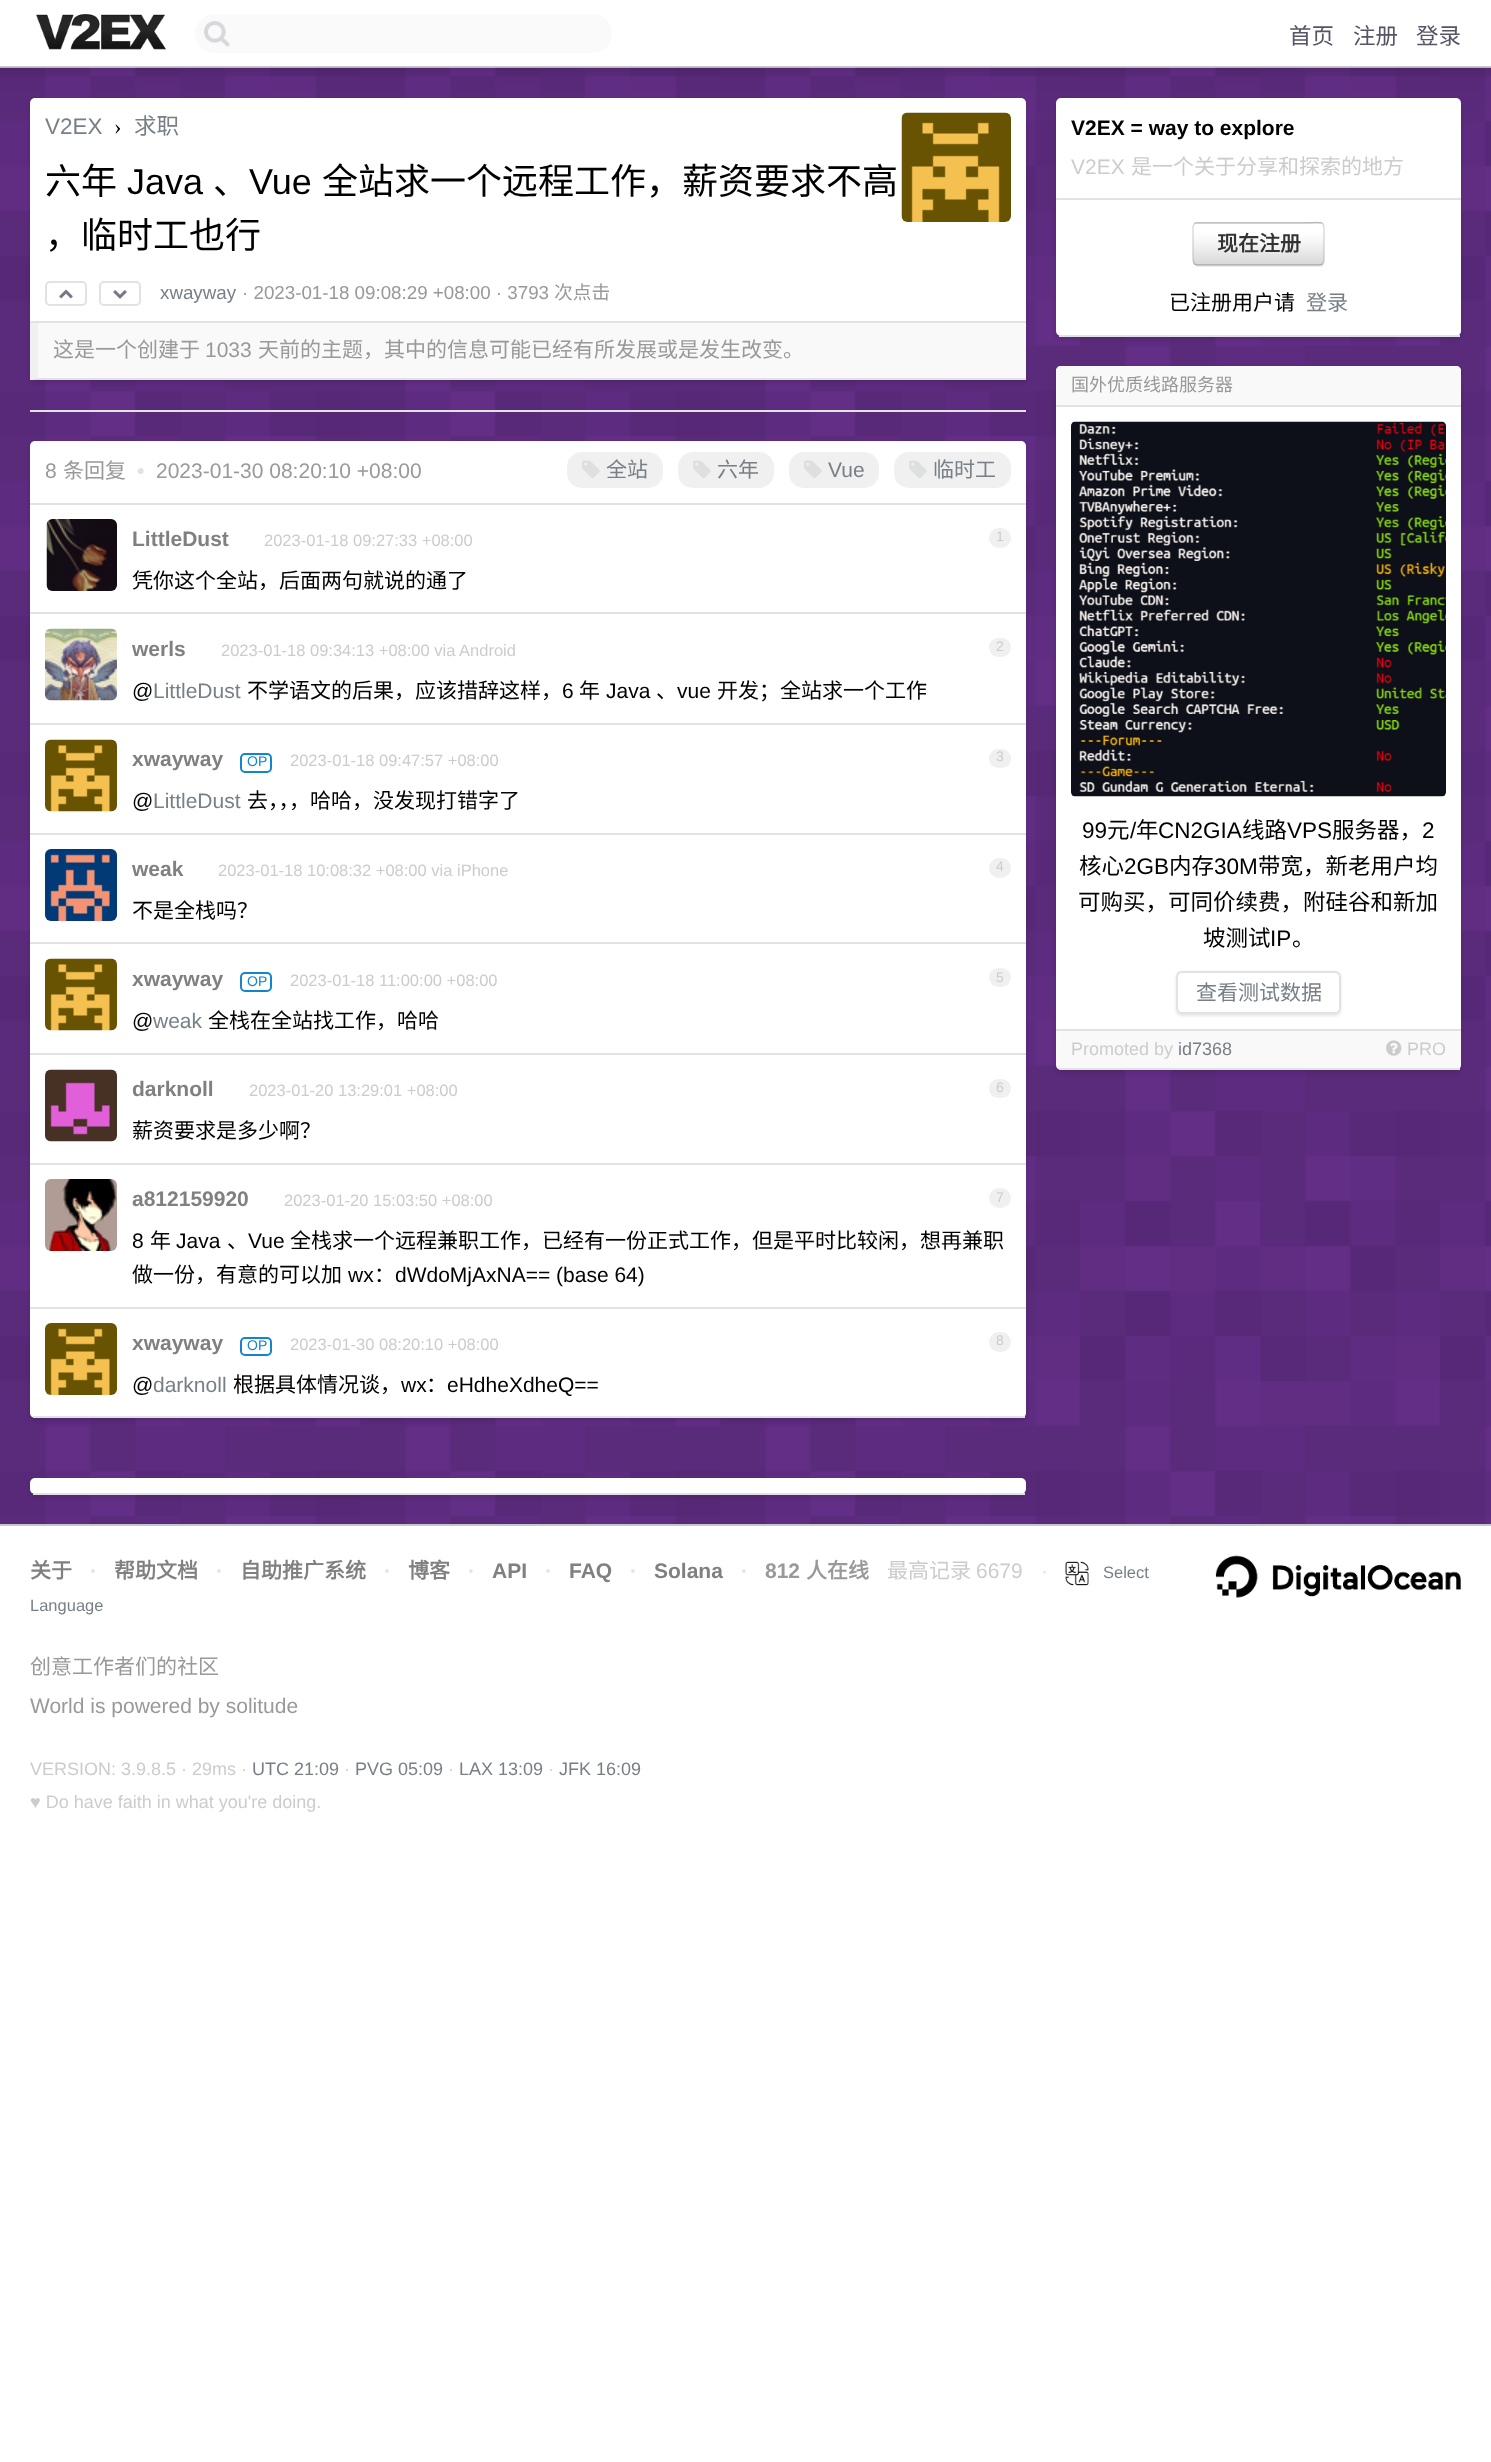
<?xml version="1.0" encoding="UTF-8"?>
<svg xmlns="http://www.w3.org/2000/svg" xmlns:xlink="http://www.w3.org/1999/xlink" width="1491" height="2462">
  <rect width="100%" height="100%" fill="#ffffff" />
  <rect y="66" width="1491" height="2" fill="#c7c7c7" />
  <image x="36" y="14" width="130" height="36" xlink:href="image1.png" />
  <rect x="195" y="14" width="417" height="39" rx="19.5" fill="#fafafa" />
  <image x="204" y="21" width="26" height="26" xlink:href="image2.png" />
  <rect y="68" width="1491" height="1456" fill="#622e86" />
  <image x="0" y="67" width="1491" height="1457" xlink:href="image3.png" />
  <rect x="30" y="101" width="996" height="282" rx="5" fill="#000000" fill-opacity="0.1" filter="blur(2px)" />
  <rect x="30" y="98" width="996" height="282" rx="5" fill="#ffffff" />
  <rect x="30" y="323" width="996" height="57" fill="#f9f9f9" />
  <path d="M 1026 380 h -996 l 8 -2 h 988 z" fill="#e2e2e2" />
  <path d="M 30 380 v -58 h 8 v 56 z" fill="#f0f0f0" />
  <rect x="30" y="321" width="996" height="2" fill="#e2e2e2" />
  <image x="901" y="112" width="110" height="110" xlink:href="image4.png" />
  <rect x="46" y="282" width="40" height="23" rx="4" fill="none" stroke="#e2e2e2" stroke-width="2" />
  <image x="59" y="289" width="14" height="10" xlink:href="image5.png" />
  <rect x="100" y="282" width="40" height="23" rx="4" fill="none" stroke="#e2e2e2" stroke-width="2" />
  <image x="113" y="290" width="14" height="9" xlink:href="image6.png" />
  <rect x="30" y="410" width="996" height="2" fill="#e2e2e2" />
  <rect x="30" y="444" width="996" height="977" rx="5" fill="#000000" fill-opacity="0.1" filter="blur(2px)" />
  <rect x="30" y="441" width="996" height="977" rx="5" fill="#ffffff" />
  <rect x="33" y="1416" width="992" height="2" fill="#e2e2e2" />
  <rect x="30" y="503" width="996" height="2" fill="#e2e2e2" />
  <rect x="567" y="452" width="96" height="36" rx="15" fill="#f0f0f0" />
  <image x="582" y="460" width="18" height="18" xlink:href="image7.png" />
  <rect x="678" y="452" width="96" height="36" rx="15" fill="#f0f0f0" />
  <image x="693" y="460" width="18" height="18" xlink:href="image7.png" />
  <rect x="789" y="452" width="90" height="36" rx="15" fill="#f0f0f0" />
  <image x="804" y="460" width="18" height="18" xlink:href="image7.png" />
  <rect x="894" y="452" width="117" height="36" rx="15" fill="#f0f0f0" />
  <image x="909" y="460" width="18" height="18" xlink:href="image7.png" />
  <rect x="30" y="612" width="996" height="2" fill="#e2e2e2" />
  <image x="46" y="519" width="71" height="72" xlink:href="image8.png" />
  <rect x="989" y="528" width="22" height="20" rx="10" fill="#f0f0f0" />
  <rect x="30" y="723" width="996" height="2" fill="#e2e2e2" />
  <image x="45" y="628" width="72" height="73" xlink:href="image9.png" />
  <rect x="989" y="638" width="22" height="19" rx="9.5" fill="#f0f0f0" />
  <rect x="30" y="833" width="996" height="2" fill="#e2e2e2" />
  <image x="45" y="739" width="72" height="73" xlink:href="image10.png" />
  <rect x="241" y="754" width="30" height="18" rx="4" fill="none" stroke="#1484cd" stroke-width="2" />
  <rect x="989" y="749" width="22" height="19" rx="9.5" fill="#f0f0f0" />
  <rect x="30" y="942" width="996" height="2" fill="#e2e2e2" />
  <image x="45" y="849" width="72" height="72" xlink:href="image11.png" />
  <rect x="989" y="858" width="22" height="20" rx="10" fill="#f0f0f0" />
  <rect x="30" y="1053" width="996" height="2" fill="#e2e2e2" />
  <image x="45" y="958" width="72" height="73" xlink:href="image10.png" />
  <rect x="241" y="973" width="30" height="18" rx="4" fill="none" stroke="#1484cd" stroke-width="2" />
  <rect x="989" y="968" width="22" height="19" rx="9.5" fill="#f0f0f0" />
  <rect x="30" y="1163" width="996" height="2" fill="#e2e2e2" />
  <image x="45" y="1069" width="72" height="73" xlink:href="image12.png" />
  <rect x="989" y="1079" width="22" height="19" rx="9.5" fill="#f0f0f0" />
  <rect x="30" y="1307" width="996" height="2" fill="#e2e2e2" />
  <image x="45" y="1179" width="72" height="72" xlink:href="image13.png" />
  <rect x="989" y="1188" width="22" height="20" rx="10" fill="#f0f0f0" />
  <image x="45" y="1323" width="72" height="72" xlink:href="image14.png" />
  <rect x="241" y="1338" width="30" height="17" rx="4" fill="none" stroke="#1484cd" stroke-width="2" />
  <rect x="989" y="1332" width="22" height="20" rx="10" fill="#f0f0f0" />
  <rect x="30" y="1481" width="996" height="16" rx="5" fill="#000000" fill-opacity="0.1" filter="blur(2px)" />
  <rect x="30" y="1478" width="996" height="16" rx="5" fill="#ffffff" />
  <rect x="33" y="1493" width="992" height="2" fill="#e2e2e2" />
  <rect x="1056" y="101" width="405" height="238" rx="5" fill="#000000" fill-opacity="0.1" filter="blur(2px)" />
  <rect x="1056" y="98" width="405" height="238" rx="5" fill="#ffffff" />
  <rect x="1059" y="335" width="401" height="2" fill="#e2e2e2" />
  <rect x="1056" y="198" width="405" height="2" fill="#e2e2e2" />
  <path d="M 1193 263 c 1 2 3 4 5 4 h 122 c 3 0 5 -2 5 -5 v -33 l -1 -2 v 34 c 0 2 -2 5 -4 5 h -123 c -2 0 -3 -1 -4 -3 z" fill="#ececed" />
  <rect x="1193" y="222" width="132" height="44" rx="5" fill="#ffffff" />
  <image x="1192" y="222" width="133" height="44" xlink:href="image15.png" />
  <path d="M 1322.5 263.5 c -0.5 1 -1.5 1.5 -2.5 1.5 h -123 c -1 0 -2 -0.5 -2.5 -1.5" fill="none" stroke="#50505a" stroke-opacity="0.35" stroke-width="1.5" />
  <path d="M 1194.5 263.5 c -2.5 -2.5 -1.5 -11 -1.5 -14 v -17.5 c 0 -2.5 -1 -9 4 -9 h 102.5 c 28.5 0 24.5 -5.5 24.5 21 v 11 c 0 2 0.5 6.5 -1.5 8.5" fill="none" stroke="#50505a" stroke-opacity="0.2" stroke-width="1.5" />
  <rect x="1056" y="369" width="405" height="704" rx="5" fill="#000000" fill-opacity="0.1" filter="blur(2px)" />
  <rect x="1056" y="366" width="405" height="704" rx="5" fill="#ffffff" />
  <rect x="1059" y="1068" width="401" height="2" fill="#e2e2e2" />
  <path d="M 1061 366 h 395 c 3 0 5 2 5 5 v 36 h -405 v -36 c 0 -3 2 -5 5 -5 z" fill="#f9f9f9" />
  <rect x="1056" y="405" width="405" height="2" fill="#e2e2e2" />
  <image x="1071" y="421" width="375" height="376" xlink:href="image16.png" />
  <rect x="1056" y="1029" width="405" height="2" fill="#e2e2e2" />
  <rect x="1176" y="972" width="165" height="44" rx="6" fill="#000000" fill-opacity="0.1" filter="blur(1.5px)" />
  <rect x="1177" y="972" width="163" height="41" rx="5" fill="#ffffff" stroke="#e2e2e2" stroke-width="2" />
  <path d="M 1056 1031 h 405 v 32 c 0 3 -2 5 -5 5 h -395 c -3 0 -5 -2 -5 -5 z" fill="#f9f9f9" />
  <image x="1386" y="1040" width="16" height="16" xlink:href="image17.png" />
  <rect y="1524" width="1491" height="2" fill="#c7c7c7" />
  <image x="1065" y="1561" width="24" height="25" xlink:href="image18.png" />
  <image x="1215" y="1555" width="246" height="43" xlink:href="image19.png" />
  <text x="1289" y="44" style="font-family: Noto Sans CJK SC; font-size: 22.5px; fill: #555566">首页</text>
  <text x="1353" y="44" style="font-family: Noto Sans CJK SC; font-size: 22.5px; fill: #555566">注册</text>
  <text x="1416" y="44" style="font-family: Noto Sans CJK SC; font-size: 22.5px; fill: #555566">登录</text>
  <text x="45" y="134" style="font-family: Liberation Sans; font-size: 22.5px; fill: #778087">V2EX</text>
  <text x="114" y="134" style="font-family: Liberation Serif; font-size: 22.5px; fill: #000000">›</text>
  <text x="134" y="134" style="font-family: Noto Sans CJK SC; font-size: 22.5px; fill: #778087">求职</text>
  <text x="45" y="194" style="font-family: Noto Sans CJK SC; font-size: 36px; fill: #000000">六年</text>
  <text x="127" y="194" style="font-family: Liberation Sans; font-size: 36px; fill: #000000">Java</text>
  <text x="213" y="194" style="font-family: Noto Sans CJK SC; font-size: 36px; fill: #000000">、</text>
  <text x="249" y="194" style="font-family: Liberation Sans; font-size: 36px; fill: #000000">Vue</text>
  <text x="322" y="194" style="font-family: Noto Sans CJK SC; font-size: 36px; fill: #000000">全站求一个远程工作，薪资要求不高</text>
  <text x="45" y="248" style="font-family: Noto Sans CJK SC; font-size: 36px; fill: #000000">，临时工也行</text>
  <text x="160" y="299" style="font-family: Liberation Sans; font-size: 18.75px; fill: #778087">xwayway</text>
  <text x="242" y="299" style="font-family: Liberation Sans; font-size: 18.75px; fill: #999999">· 2023-01-18 09:08:29 +08:00 · 3793</text>
  <text x="554" y="299" style="font-family: Noto Sans CJK SC; font-size: 18.75px; fill: #999999">次点击</text>
  <text x="53" y="357" style="font-family: Noto Sans CJK SC; font-size: 21px; fill: #999999">这是一个创建于</text>
  <text x="205" y="357" style="font-family: Liberation Sans; font-size: 21px; fill: #999999">1033</text>
  <text x="258" y="357" style="font-family: Noto Sans CJK SC; font-size: 21px; fill: #999999">天前的主题，其中的信息可能已经有所发展或是发生改变。</text>
  <text x="45" y="478" style="font-family: Liberation Sans; font-size: 21px; fill: #999999">8</text>
  <text x="63" y="478" style="font-family: Noto Sans CJK SC; font-size: 21px; fill: #999999">条回复</text>
  <text x="137" y="478" style="font-family: Liberation Sans; font-size: 21px; font-weight: bold; fill: #e2e2e2">•</text>
  <text x="156" y="478" style="font-family: Liberation Sans; font-size: 21px; fill: #999999">2023-01-30 08:20:10 +08:00</text>
  <text x="606" y="477" style="font-family: Noto Sans CJK SC; font-size: 21px; fill: #778087">全站</text>
  <text x="717" y="477" style="font-family: Noto Sans CJK SC; font-size: 21px; fill: #778087">六年</text>
  <text x="828" y="477" style="font-family: Liberation Sans; font-size: 21px; fill: #778087">Vue</text>
  <text x="933" y="477" style="font-family: Noto Sans CJK SC; font-size: 21px; fill: #778087">临时工</text>
  <text x="132" y="546" style="font-family: Liberation Sans; font-size: 21px; font-weight: bold; fill: #808080">LittleDust</text>
  <text x="264" y="546" style="font-family: Liberation Sans; font-size: 16.5px; fill: #cccccc">2023-01-18 09:27:33 +08:00</text>
  <text x="996" y="541" style="font-family: Liberation Sans; font-size: 14px; fill: #cccccc">1</text>
  <text x="132" y="588" style="font-family: Noto Sans CJK SC; font-size: 21px; fill: #000000">凭你这个全站，后面两句就说的通了</text>
  <text x="132" y="656" style="font-family: Liberation Sans; font-size: 21px; font-weight: bold; fill: #808080">werls</text>
  <text x="221" y="656" style="font-family: Liberation Sans; font-size: 16.5px; fill: #cccccc">2023-01-18 09:34:13 +08:00 via Android</text>
  <text x="996" y="651" style="font-family: Liberation Sans; font-size: 14px; fill: #cccccc">2</text>
  <text x="132" y="698" style="font-family: Liberation Sans; font-size: 21px; fill: #000000">@</text>
  <text x="153" y="698" style="font-family: Liberation Sans; font-size: 21px; fill: #778087">LittleDust</text>
  <text x="247" y="698" style="font-family: Noto Sans CJK SC; font-size: 21px; fill: #000000">不学语文的后果，应该措辞这样，</text>
  <text x="562" y="698" style="font-family: Liberation Sans; font-size: 21px; fill: #000000">6</text>
  <text x="579" y="698" style="font-family: Noto Sans CJK SC; font-size: 21px; fill: #000000">年</text>
  <text x="606" y="698" style="font-family: Liberation Sans; font-size: 21px; fill: #000000">Java</text>
  <text x="656" y="698" style="font-family: Noto Sans CJK SC; font-size: 21px; fill: #000000">、</text>
  <text x="677" y="698" style="font-family: Liberation Sans; font-size: 21px; fill: #000000">vue</text>
  <text x="717" y="698" style="font-family: Noto Sans CJK SC; font-size: 21px; fill: #000000">开发；全站求一个工作</text>
  <text x="132" y="766" style="font-family: Liberation Sans; font-size: 21px; font-weight: bold; fill: #808080">xwayway</text>
  <text x="247" y="766" style="font-family: Liberation Sans; font-size: 14px; fill: #1484cd">OP</text>
  <text x="290" y="766" style="font-family: Liberation Sans; font-size: 16.5px; fill: #cccccc">2023-01-18 09:47:57 +08:00</text>
  <text x="996" y="761" style="font-family: Liberation Sans; font-size: 14px; fill: #cccccc">3</text>
  <text x="132" y="808" style="font-family: Liberation Sans; font-size: 21px; fill: #000000">@</text>
  <text x="153" y="808" style="font-family: Liberation Sans; font-size: 21px; fill: #778087">LittleDust</text>
  <text x="247" y="808" style="font-family: Noto Sans CJK SC; font-size: 21px; fill: #000000">去，，，哈哈，没发现打错字了</text>
  <text x="132" y="876" style="font-family: Liberation Sans; font-size: 21px; font-weight: bold; fill: #808080">weak</text>
  <text x="218" y="876" style="font-family: Liberation Sans; font-size: 16.5px; fill: #cccccc">2023-01-18 10:08:32 +08:00 via iPhone</text>
  <text x="996" y="871" style="font-family: Liberation Sans; font-size: 14px; fill: #cccccc">4</text>
  <text x="132" y="918" style="font-family: Noto Sans CJK SC; font-size: 21px; fill: #000000">不是全栈吗？</text>
  <text x="132" y="986" style="font-family: Liberation Sans; font-size: 21px; font-weight: bold; fill: #808080">xwayway</text>
  <text x="247" y="986" style="font-family: Liberation Sans; font-size: 14px; fill: #1484cd">OP</text>
  <text x="290" y="986" style="font-family: Liberation Sans; font-size: 16.5px; fill: #cccccc">2023-01-18 11:00:00 +08:00</text>
  <text x="996" y="982" style="font-family: Liberation Sans; font-size: 14px; fill: #cccccc">5</text>
  <text x="132" y="1028" style="font-family: Liberation Sans; font-size: 21px; fill: #000000">@</text>
  <text x="153" y="1028" style="font-family: Liberation Sans; font-size: 21px; fill: #778087">weak</text>
  <text x="208" y="1028" style="font-family: Noto Sans CJK SC; font-size: 21px; fill: #000000">全栈在全站找工作，哈哈</text>
  <text x="132" y="1096" style="font-family: Liberation Sans; font-size: 21px; font-weight: bold; fill: #808080">darknoll</text>
  <text x="249" y="1096" style="font-family: Liberation Sans; font-size: 16.5px; fill: #cccccc">2023-01-20 13:29:01 +08:00</text>
  <text x="996" y="1092" style="font-family: Liberation Sans; font-size: 14px; fill: #cccccc">6</text>
  <text x="132" y="1138" style="font-family: Noto Sans CJK SC; font-size: 21px; fill: #000000">薪资要求是多少啊？</text>
  <text x="132" y="1206" style="font-family: Liberation Sans; font-size: 21px; font-weight: bold; fill: #808080">a812159920</text>
  <text x="284" y="1206" style="font-family: Liberation Sans; font-size: 16.5px; fill: #cccccc">2023-01-20 15:03:50 +08:00</text>
  <text x="996" y="1202" style="font-family: Liberation Sans; font-size: 14px; fill: #cccccc">7</text>
  <text x="132" y="1248" style="font-family: Liberation Sans; font-size: 21px; fill: #000000">8</text>
  <text x="150" y="1248" style="font-family: Noto Sans CJK SC; font-size: 21px; fill: #000000">年</text>
  <text x="176" y="1248" style="font-family: Liberation Sans; font-size: 21px; fill: #000000">Java</text>
  <text x="227" y="1248" style="font-family: Noto Sans CJK SC; font-size: 21px; fill: #000000">、</text>
  <text x="248" y="1248" style="font-family: Liberation Sans; font-size: 21px; fill: #000000">Vue</text>
  <text x="290" y="1248" style="font-family: Noto Sans CJK SC; font-size: 21px; fill: #000000">全栈求一个远程兼职工作，已经有一份正式工作，但是平时比较闲，想再兼职</text>
  <text x="132" y="1282" style="font-family: Noto Sans CJK SC; font-size: 21px; fill: #000000">做一份，有意的可以加</text>
  <text x="348" y="1282" style="font-family: Liberation Sans; font-size: 21px; fill: #000000">wx</text>
  <text x="374" y="1282" style="font-family: Noto Sans CJK SC; font-size: 21px; fill: #000000">：</text>
  <text x="395" y="1282" style="font-family: Liberation Sans; font-size: 21px; fill: #000000">dWdoMjAxNA== (base 64)</text>
  <text x="132" y="1350" style="font-family: Liberation Sans; font-size: 21px; font-weight: bold; fill: #808080">xwayway</text>
  <text x="247" y="1350" style="font-family: Liberation Sans; font-size: 14px; fill: #1484cd">OP</text>
  <text x="290" y="1350" style="font-family: Liberation Sans; font-size: 16.5px; fill: #cccccc">2023-01-30 08:20:10 +08:00</text>
  <text x="996" y="1345" style="font-family: Liberation Sans; font-size: 14px; fill: #cccccc">8</text>
  <text x="132" y="1392" style="font-family: Liberation Sans; font-size: 21px; fill: #000000">@</text>
  <text x="153" y="1392" style="font-family: Liberation Sans; font-size: 21px; fill: #778087">darknoll</text>
  <text x="233" y="1392" style="font-family: Noto Sans CJK SC; font-size: 21px; fill: #000000">根据具体情况谈，</text>
  <text x="401" y="1392" style="font-family: Liberation Sans; font-size: 21px; fill: #000000">wx</text>
  <text x="426" y="1392" style="font-family: Noto Sans CJK SC; font-size: 21px; fill: #000000">：</text>
  <text x="447" y="1392" style="font-family: Liberation Sans; font-size: 21px; fill: #000000">eHdheXdheQ==</text>
  <text x="1071" y="135" style="font-family: Liberation Sans; font-size: 21px; font-weight: bold; fill: #000000">V2EX = way to explore</text>
  <text x="1071" y="174" style="font-family: Liberation Sans; font-size: 21px; fill: #cccccc">V2EX</text>
  <text x="1131" y="174" style="font-family: Noto Sans CJK SC; font-size: 21px; fill: #cccccc">是一个关于分享和探索的地方</text>
  <text x="1217" y="251" style="font-family: Noto Sans CJK SC; font-size: 21px; font-weight: bold; fill: #333333">现在注册</text>
  <text x="1169" y="310" style="font-family: Noto Sans CJK SC; font-size: 21px; fill: #000000">已注册用户请</text>
  <text x="1306" y="310" style="font-family: Noto Sans CJK SC; font-size: 21px; fill: #778087">登录</text>
  <text x="1071" y="391" style="font-family: Noto Sans CJK SC; font-size: 18px; fill: #999999">国外优质线路服务器</text>
  <text x="1082" y="838" style="font-family: Liberation Sans; font-size: 22.5px; fill: #000000">99</text>
  <text x="1107" y="838" style="font-family: Noto Sans CJK SC; font-size: 22.5px; fill: #000000">元</text>
  <text x="1130" y="838" style="font-family: Liberation Sans; font-size: 22.5px; fill: #000000">/</text>
  <text x="1136" y="838" style="font-family: Noto Sans CJK SC; font-size: 22.5px; fill: #000000">年</text>
  <text x="1158" y="838" style="font-family: Liberation Sans; font-size: 22.5px; fill: #000000">CN2GIA</text>
  <text x="1242" y="838" style="font-family: Noto Sans CJK SC; font-size: 22.5px; fill: #000000">线路</text>
  <text x="1287" y="838" style="font-family: Liberation Sans; font-size: 22.5px; fill: #000000">VPS</text>
  <text x="1332" y="838" style="font-family: Noto Sans CJK SC; font-size: 22.5px; fill: #000000">服务器，</text>
  <text x="1422" y="838" style="font-family: Liberation Sans; font-size: 22.5px; fill: #000000">2</text>
  <text x="1079" y="874" style="font-family: Noto Sans CJK SC; font-size: 22.5px; fill: #000000">核心</text>
  <text x="1124" y="874" style="font-family: Liberation Sans; font-size: 22.5px; fill: #000000">2GB</text>
  <text x="1169" y="874" style="font-family: Noto Sans CJK SC; font-size: 22.5px; fill: #000000">内存</text>
  <text x="1214" y="874" style="font-family: Liberation Sans; font-size: 22.5px; fill: #000000">30M</text>
  <text x="1258" y="874" style="font-family: Noto Sans CJK SC; font-size: 22.5px; fill: #000000">带宽，新老用户均</text>
  <text x="1078" y="910" style="font-family: Noto Sans CJK SC; font-size: 22.5px; fill: #000000">可购买，可同价续费，附硅谷和新加</text>
  <text x="1203" y="946" style="font-family: Noto Sans CJK SC; font-size: 22.5px; fill: #000000">坡测试</text>
  <text x="1270" y="946" style="font-family: Liberation Sans; font-size: 22.5px; fill: #000000">IP</text>
  <text x="1292" y="946" style="font-family: Noto Sans CJK SC; font-size: 22.5px; fill: #000000">。</text>
  <text x="1196" y="1000" style="font-family: Noto Sans CJK SC; font-size: 21px; fill: #778087">查看测试数据</text>
  <text x="1071" y="1055" style="font-family: Liberation Sans; font-size: 18px; fill: #cccccc">Promoted by</text>
  <text x="1178" y="1055" style="font-family: Liberation Sans; font-size: 18px; fill: #778087">id7368</text>
  <text x="1407" y="1055" style="font-family: Liberation Sans; font-size: 18px; fill: #cccccc">PRO</text>
  <text x="30" y="1578" style="font-family: Noto Sans CJK SC; font-size: 21px; font-weight: bold; fill: #808080">关于</text>
  <text x="90" y="1578" style="font-family: Liberation Sans; font-size: 21px; font-weight: bold; fill: #e2e2e2">·</text>
  <text x="114" y="1578" style="font-family: Noto Sans CJK SC; font-size: 21px; font-weight: bold; fill: #808080">帮助文档</text>
  <text x="216" y="1578" style="font-family: Liberation Sans; font-size: 21px; font-weight: bold; fill: #e2e2e2">·</text>
  <text x="240" y="1578" style="font-family: Noto Sans CJK SC; font-size: 21px; font-weight: bold; fill: #808080">自助推广系统</text>
  <text x="384" y="1578" style="font-family: Liberation Sans; font-size: 21px; font-weight: bold; fill: #e2e2e2">·</text>
  <text x="408" y="1578" style="font-family: Noto Sans CJK SC; font-size: 21px; font-weight: bold; fill: #808080">博客</text>
  <text x="468" y="1578" style="font-family: Liberation Sans; font-size: 21px; font-weight: bold; fill: #e2e2e2">·</text>
  <text x="492" y="1578" style="font-family: Liberation Sans; font-size: 21px; font-weight: bold; fill: #808080">API</text>
  <text x="545" y="1578" style="font-family: Liberation Sans; font-size: 21px; font-weight: bold; fill: #e2e2e2">·</text>
  <text x="569" y="1578" style="font-family: Liberation Sans; font-size: 21px; font-weight: bold; fill: #808080">FAQ</text>
  <text x="630" y="1578" style="font-family: Liberation Sans; font-size: 21px; font-weight: bold; fill: #e2e2e2">·</text>
  <text x="654" y="1578" style="font-family: Liberation Sans; font-size: 21px; font-weight: bold; fill: #808080">Solana</text>
  <text x="741" y="1578" style="font-family: Liberation Sans; font-size: 21px; font-weight: bold; fill: #e2e2e2">·</text>
  <text x="765" y="1578" style="font-family: Liberation Sans; font-size: 21px; font-weight: bold; fill: #999999">812</text>
  <text x="806" y="1578" style="font-family: Noto Sans CJK SC; font-size: 21px; font-weight: bold; fill: #999999">人在线</text>
  <text x="887" y="1578" style="font-family: Noto Sans CJK SC; font-size: 21px; fill: #cccccc">最高记录</text>
  <text x="976" y="1578" style="font-family: Liberation Sans; font-size: 21px; fill: #cccccc">6679</text>
  <text x="1041" y="1578" style="font-family: Liberation Sans; font-size: 21px; fill: #e2e2e2">·</text>
  <text x="1103" y="1578" style="font-family: Liberation Sans; font-size: 16.5px; fill: #778087">Select</text>
  <text x="30" y="1611" style="font-family: Liberation Sans; font-size: 16.5px; fill: #778087">Language</text>
  <text x="30" y="1674" style="font-family: Noto Sans CJK SC; font-size: 21px; fill: #999999">创意工作者们的社区</text>
  <text x="30" y="1713" style="font-family: Liberation Sans; font-size: 21px; fill: #999999">World is powered by solitude</text>
  <text x="30" y="1775" style="font-family: Liberation Sans; font-size: 18px; fill: #cccccc">VERSION: 3.9.8.5 · 29ms ·</text>
  <text x="252" y="1775" style="font-family: Liberation Sans; font-size: 18px; fill: #778087">UTC 21:09</text>
  <text x="344" y="1775" style="font-family: Liberation Sans; font-size: 18px; fill: #cccccc">·</text>
  <text x="355" y="1775" style="font-family: Liberation Sans; font-size: 18px; fill: #778087">PVG 05:09</text>
  <text x="448" y="1775" style="font-family: Liberation Sans; font-size: 18px; fill: #cccccc">·</text>
  <text x="459" y="1775" style="font-family: Liberation Sans; font-size: 18px; fill: #778087">LAX 13:09</text>
  <text x="548" y="1775" style="font-family: Liberation Sans; font-size: 18px; fill: #cccccc">·</text>
  <text x="559" y="1775" style="font-family: Liberation Sans; font-size: 18px; fill: #778087">JFK 16:09</text>
  <text x="30" y="1808" style="font-family: Liberation Sans; font-size: 18px; fill: #cccccc">♥ Do have faith in what you're doing.</text>
</svg>
